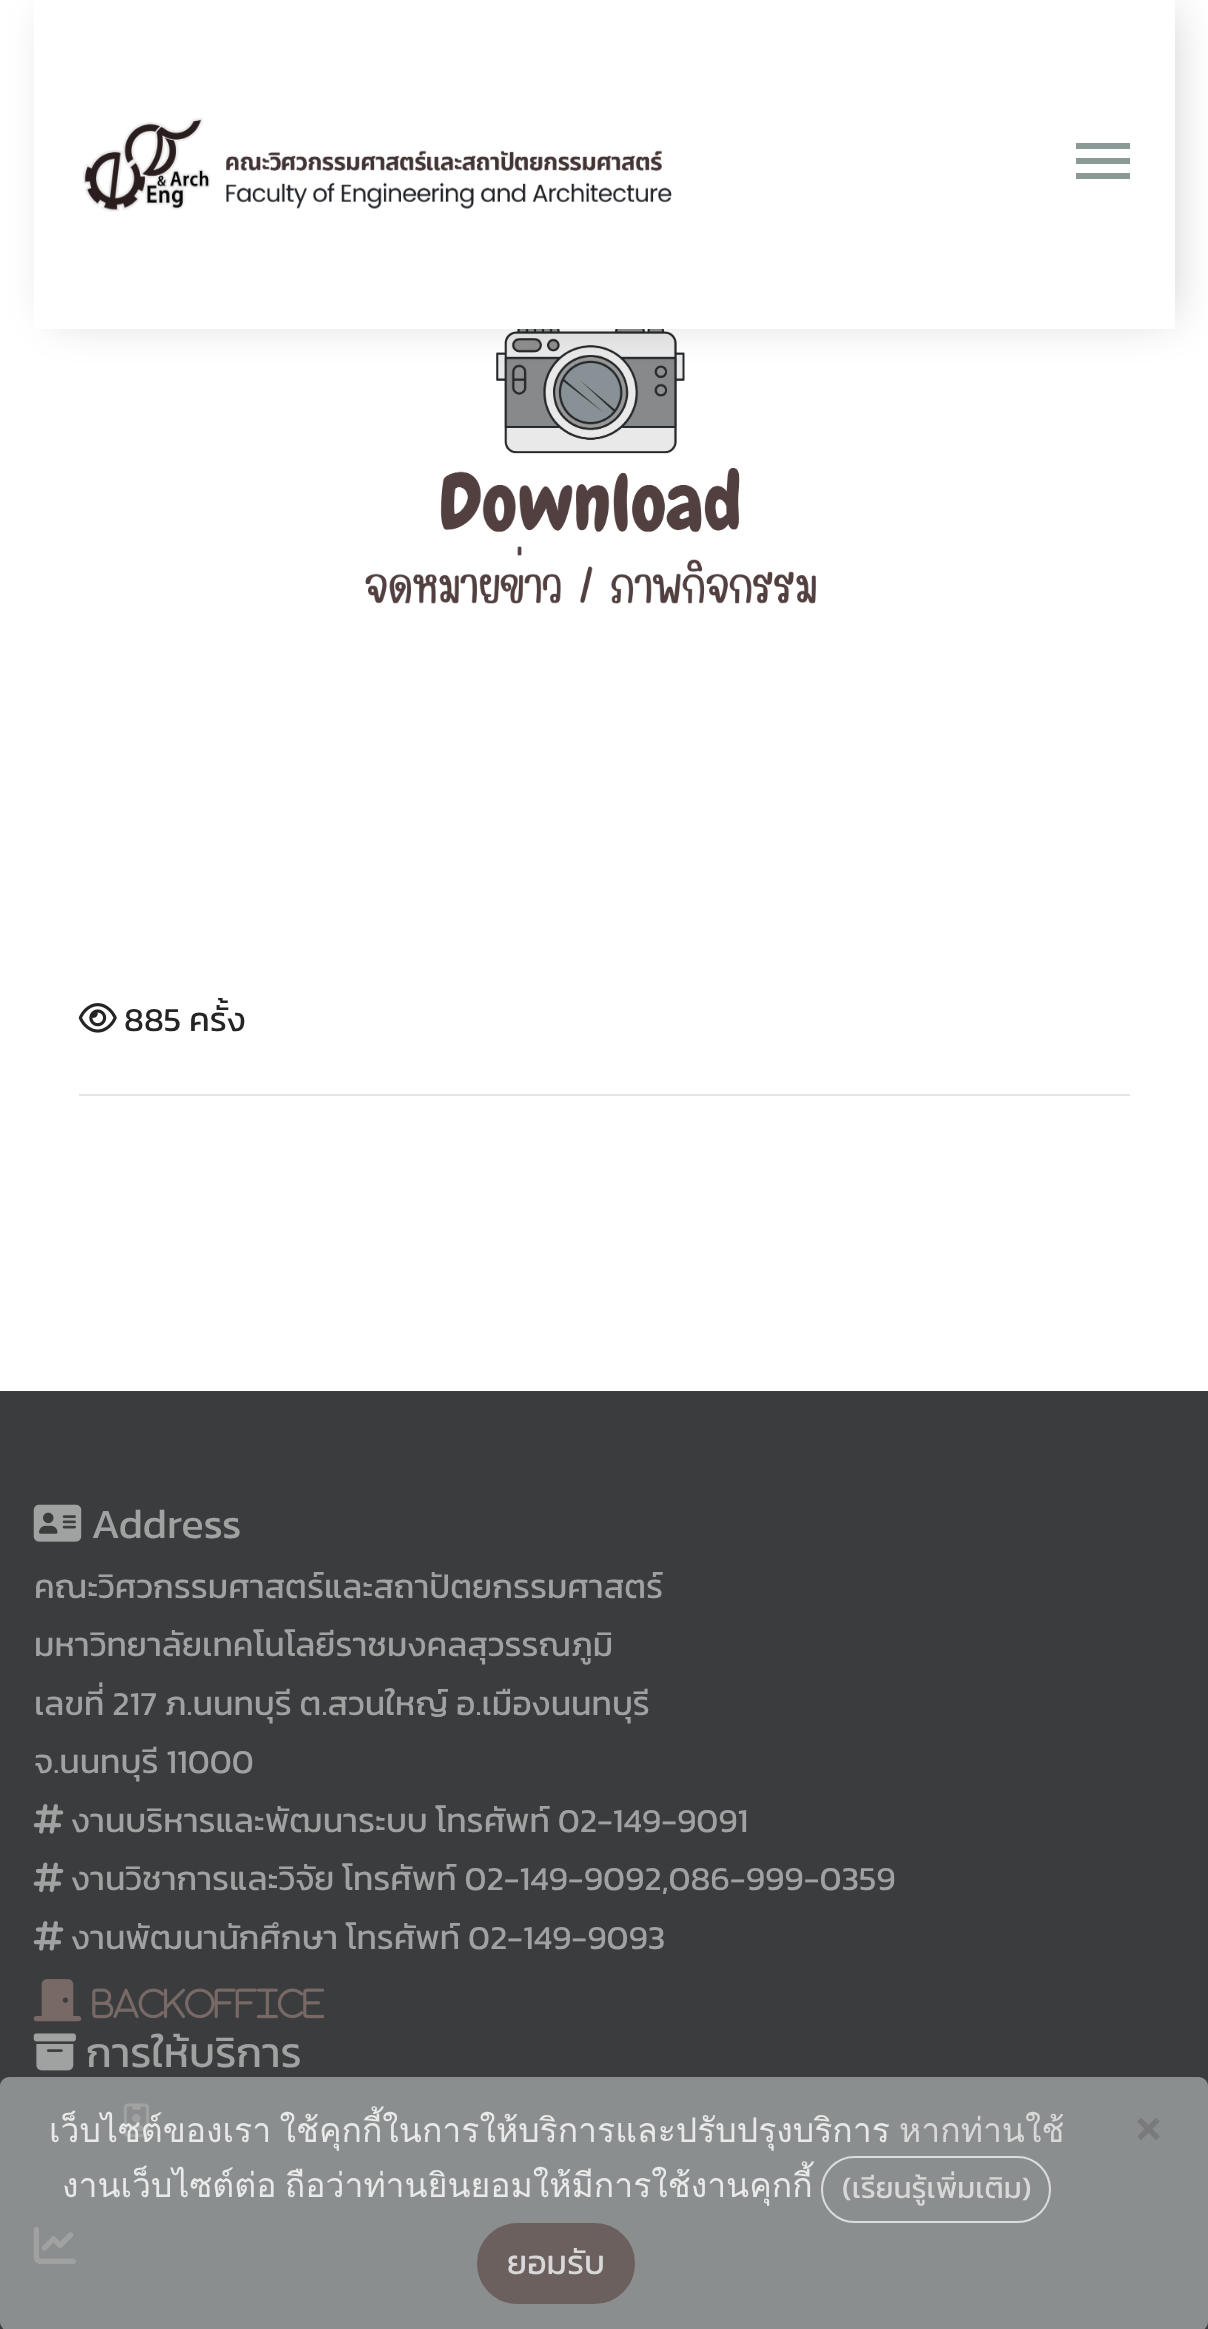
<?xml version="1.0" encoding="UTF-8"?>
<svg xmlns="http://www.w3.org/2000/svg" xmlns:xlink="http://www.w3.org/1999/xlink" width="1208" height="2329">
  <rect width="100%" height="100%" fill="#ffffff" />
  <image x="365" y="329" width="451" height="275" xlink:href="image2.png" />
  <rect x="54" y="11" width="1118" height="306" fill="#000000" fill-opacity="0.2" filter="blur(22.5px)" />
  <rect x="34" width="1141" height="329" fill="#ffffff" />
  <image x="83" y="118" width="589" height="94" xlink:href="image1.png" />
  <path d="M 1076 143 h 54 v 6 h -54 z m 0 21 v -6 h 54 v 6 z m 0 15 v -6 h 54 v 6 z" fill="#8a9b97" />
  <image x="78" y="1003" width="39" height="30" xlink:href="image3.png" />
  <rect x="79" y="1094" width="1051" height="2" fill="#e6e6e6" />
  <rect y="1391" width="1208" height="938" fill="#3a3c3e" />
  <image x="33" y="1504" width="49" height="38" xlink:href="image4.png" />
  <image x="33" y="1804" width="31" height="30" xlink:href="image5.png" />
  <image x="33" y="1862" width="31" height="31" xlink:href="image6.png" />
  <image x="33" y="1921" width="31" height="30" xlink:href="image5.png" />
  <image x="33" y="1979" width="49" height="43" xlink:href="image7.png" />
  <image x="92" y="1988" width="233" height="31" xlink:href="image8.png" />
  <image x="33" y="2033" width="43" height="38" xlink:href="image9.png" />
  <image x="123" y="2103" width="27" height="35" xlink:href="image10.png" />
  <rect x="34" y="2183" width="1141" height="2" fill="#343638" />
  <image x="33" y="2227" width="43" height="37" xlink:href="image11.png" />
  <rect y="2077" width="1208" height="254" rx="9" fill="#a0a2a2" fill-opacity="0.8" />
  <rect x="822" y="2157" width="228" height="65" rx="32.5" fill="none" stroke="#dbdcdc" stroke-width="2" />
  <rect x="478" y="2224" width="156" height="79" rx="39.5" fill="#6c605f" stroke="#6c605f" stroke-width="2" />
  <text x="124" y="1031" style="font-family: Kanit; font-size: 33.75px; fill: #242425">885 ครั้ง</text>
  <text x="91" y="1538" style="font-family: Kanit; font-size: 42px; fill: #a0a2a2">Address</text>
  <text x="34" y="1598" style="font-family: Kanit; font-size: 33.75px; fill: #a0a2a2">คณะวิศวกรรมศาสตร์และสถาปัตยกรรมศาสตร์</text>
  <text x="34" y="1656" style="font-family: Kanit; font-size: 33.75px; fill: #a0a2a2">มหาวิทยาลัยเทคโนโลยีราชมงคลสุวรรณภูมิ</text>
  <text x="34" y="1715" style="font-family: Kanit; font-size: 33.75px; fill: #a0a2a2">เลขที่ 217 ภ.นนทบุรี ต.สวนใหญ์ อ.เมืองนนทบุรี</text>
  <text x="34" y="1773" style="font-family: Kanit; font-size: 33.75px; fill: #a0a2a2">จ.นนทบุรี 11000</text>
  <text x="71" y="1832" style="font-family: Kanit; font-size: 33.75px; fill: #a0a2a2">งานบริหารและพัฒนาระบบ โทรศัพท์ 02-149-9091</text>
  <text x="71" y="1890" style="font-family: Kanit; font-size: 33.75px; fill: #a0a2a2">งานวิชาการและวิจัย โทรศัพท์ 02-149-9092,086-999-0359</text>
  <text x="71" y="1949" style="font-family: Kanit; font-size: 33.75px; fill: #a0a2a2">งานพัฒนานักศึกษา โทรศัพท์ 02-149-9093</text>
  <text x="86" y="2067" style="font-family: Kanit; font-size: 42px; fill: #a0a2a2">การให้บริการ</text>
  <text x="49" y="2142" word-spacing="-3" style="font-family: Loma; font-size: 33.75px; fill: #e8e9e9">เว็บไซต์ของเรา ใช้คุกกี้ในการให้บริการและปรับปรุงบริการ</text>
  <text x="899" y="2142" style="font-family: Loma; font-size: 33.75px; fill: #d8d8d8">หากท่านใช้</text>
  <text x="1134" y="2147" style="font-family: Open Sans; font-size: 51px; font-weight: bold; fill: #797a7c">×</text>
  <text x="62" y="2197" word-spacing="-3" style="font-family: Loma; font-size: 33.75px; fill: #e8e9e9">งานเว็บไซต์ต่อ ถือว่าท่านยินยอมให้มีการใช้งานคุกกี้</text>
  <text x="842" y="2198" style="font-family: Kanit; font-size: 29.75px; fill: #d8d8d8">(เรียนรู้เพิ่มเติม)</text>
  <text x="507" y="2274" style="font-family: Kanit; font-size: 33.75px; fill: #d8d8d8">ยอมรับ</text>
</svg>
